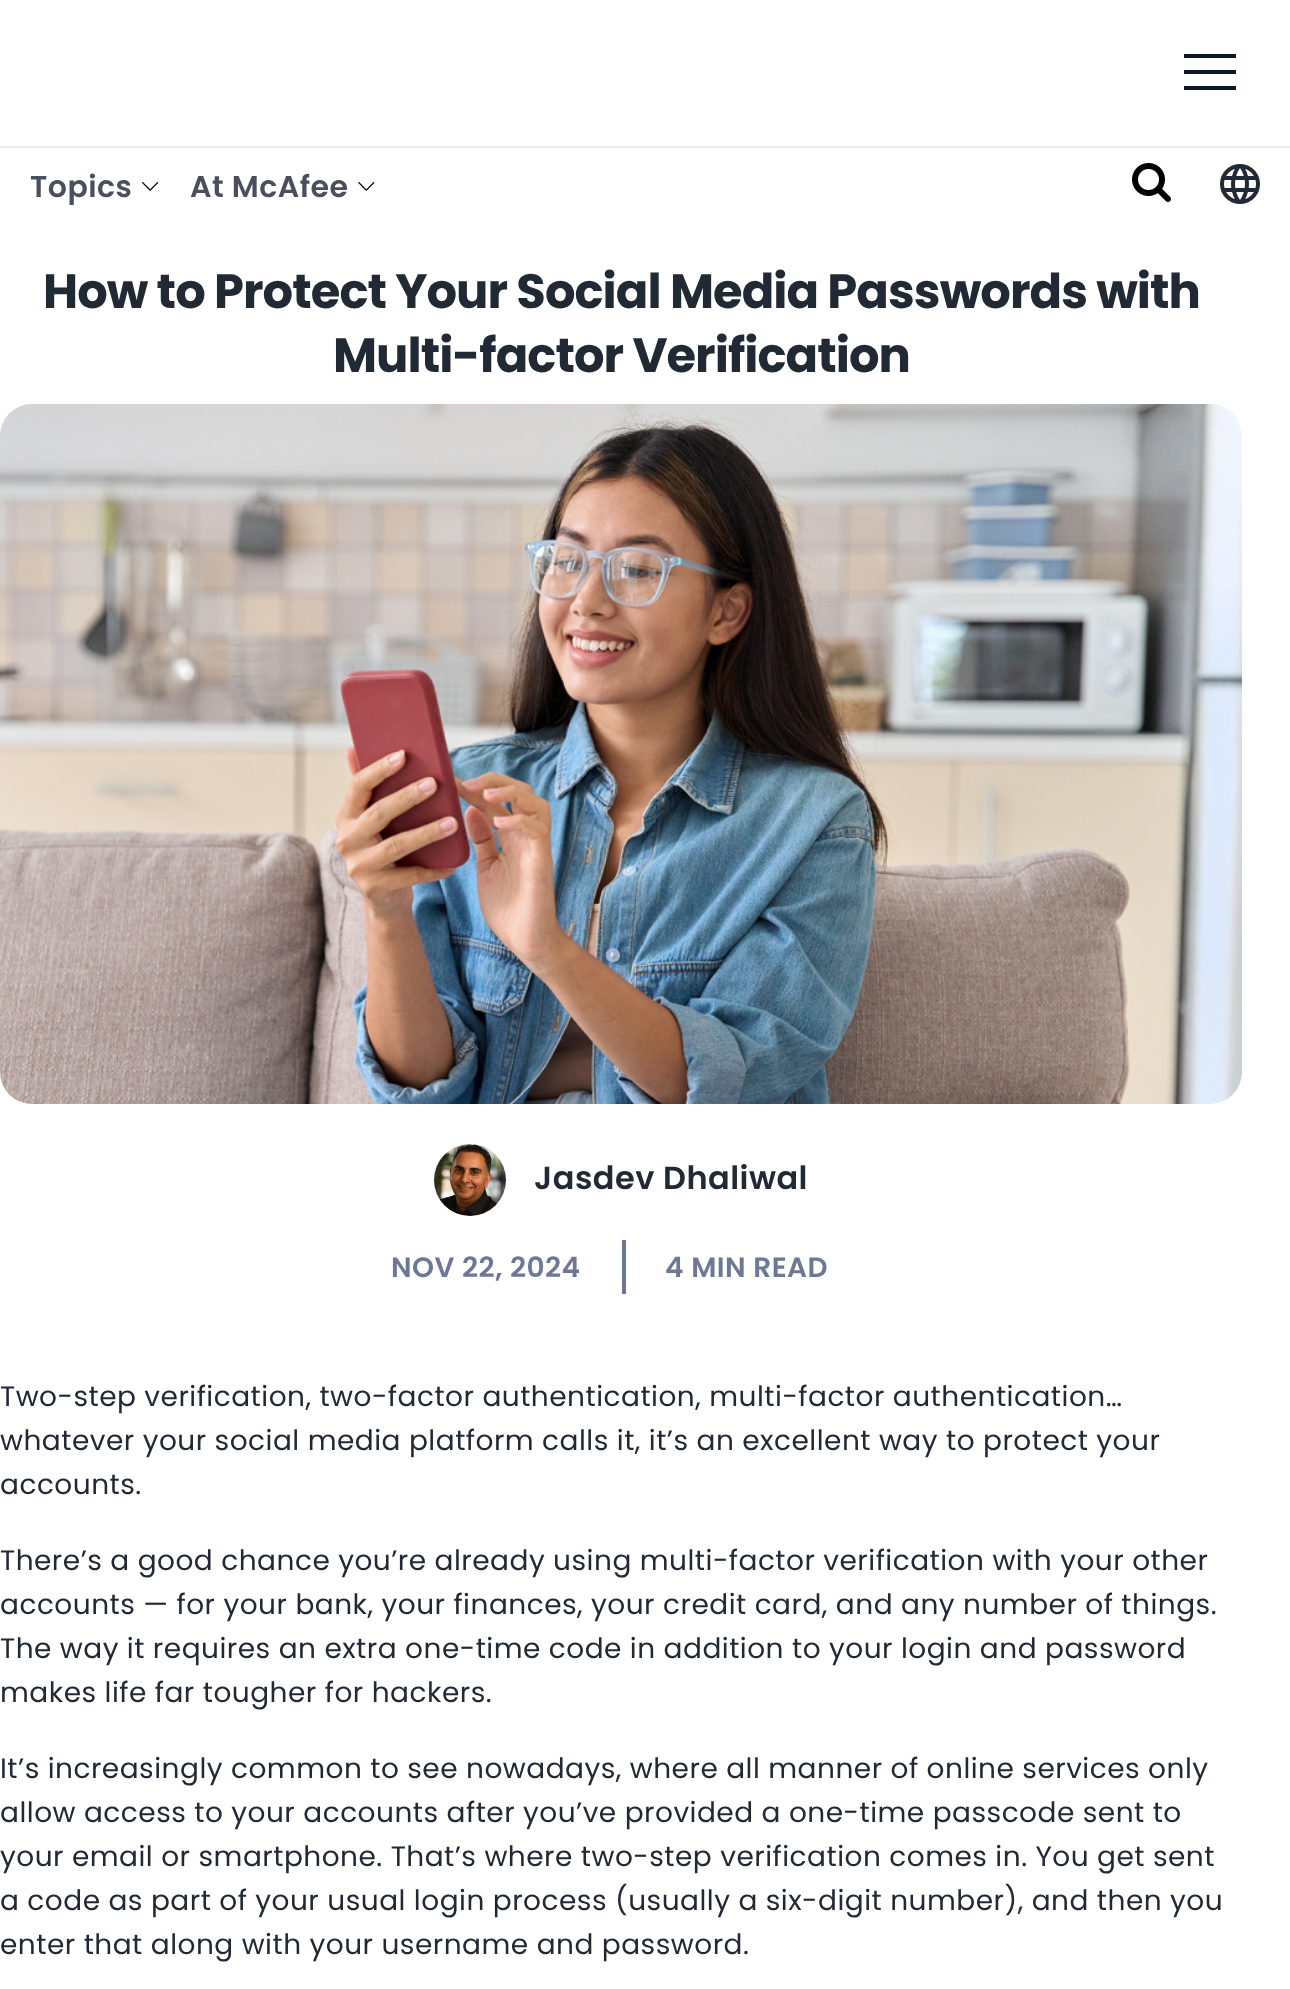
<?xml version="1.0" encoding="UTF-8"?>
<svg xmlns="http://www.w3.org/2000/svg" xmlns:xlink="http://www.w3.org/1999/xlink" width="1290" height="1989">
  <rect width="100%" height="100%" fill="#ffffff" />
  <rect x="1184" y="54" width="52" height="4" fill="#101828" />
  <rect x="1184" y="70" width="52" height="4" fill="#101828" />
  <rect x="1184" y="86" width="52" height="4" fill="#101828" />
  <rect y="146" width="1290" height="2" fill="#eaecf0" />
  <image x="142" y="182" width="17" height="9" xlink:href="image1.png" />
  <image x="358" y="182" width="17" height="9" xlink:href="image2.png" />
  <image x="1132" y="163" width="39" height="39" xlink:href="image3.png" />
  <image x="1220" y="164" width="40" height="40" xlink:href="image4.png" />
  <image x="0" y="404" width="1242" height="700" xlink:href="image5.png" />
  <image x="434" y="1144" width="72" height="72" xlink:href="image6.png" />
  <rect x="622" y="1240" width="4" height="54" fill="#6d7895" />
  <text x="30" y="197" style="font-family: Poppins; font-size: 30px; font-weight: 600; letter-spacing: 0.48px; fill: #4a4f5d">Topics</text>
  <text x="190" y="197" style="font-family: Poppins; font-size: 30px; font-weight: 600; letter-spacing: 0.48px; fill: #4a4f5d">At McAfee</text>
  <text x="43" y="308" style="font-family: Poppins; font-size: 48px; font-weight: bold; letter-spacing: -0.95px; fill: #212934">How to Protect Your Social Media Passwords with</text>
  <text x="333" y="372" style="font-family: Poppins; font-size: 48px; font-weight: bold; letter-spacing: -0.95px; fill: #212934">Multi-factor Verification</text>
  <text x="534" y="1189" style="font-family: Poppins; font-size: 32px; font-weight: 600; letter-spacing: 0.48px; fill: #212934">Jasdev Dhaliwal</text>
  <text x="391" y="1277" style="font-family: Poppins; font-size: 28px; font-weight: 600; letter-spacing: 0.48px; fill: #6d7895">NOV 22, 2024</text>
  <text x="665" y="1277" style="font-family: Poppins; font-size: 28px; font-weight: 600; letter-spacing: 0.48px; fill: #6d7895">4 MIN READ</text>
  <text x="0" y="1406" style="font-family: Poppins; font-size: 28px; letter-spacing: 0.48px; fill: #212934">Two-step verification, two-factor authentication, multi-factor authentication…</text>
  <text x="0" y="1450" style="font-family: Poppins; font-size: 28px; letter-spacing: 0.48px; fill: #212934">whatever your social media platform calls it, it’s an excellent way to protect your</text>
  <text x="0" y="1494" style="font-family: Poppins; font-size: 28px; letter-spacing: 0.48px; fill: #212934">accounts.</text>
  <text x="0" y="1570" style="font-family: Poppins; font-size: 28px; letter-spacing: 0.48px; fill: #212934">There’s a good chance you’re already using multi-factor verification with your other</text>
  <text x="0" y="1614" style="font-family: Poppins; font-size: 28px; letter-spacing: 0.48px; fill: #212934">accounts — for your bank, your finances, your credit card, and any number of things.</text>
  <text x="0" y="1658" style="font-family: Poppins; font-size: 28px; letter-spacing: 0.48px; fill: #212934">The way it requires an extra one-time code in addition to your login and password</text>
  <text x="0" y="1702" style="font-family: Poppins; font-size: 28px; letter-spacing: 0.48px; fill: #212934">makes life far tougher for hackers.</text>
  <text x="0" y="1778" style="font-family: Poppins; font-size: 28px; letter-spacing: 0.48px; fill: #212934">It’s increasingly common to see nowadays, where all manner of online services only</text>
  <text x="0" y="1822" style="font-family: Poppins; font-size: 28px; letter-spacing: 0.48px; fill: #212934">allow access to your accounts after you’ve provided a one-time passcode sent to</text>
  <text x="0" y="1866" style="font-family: Poppins; font-size: 28px; letter-spacing: 0.48px; fill: #212934">your email or smartphone. That’s where two-step verification comes in. You get sent</text>
  <text x="0" y="1910" style="font-family: Poppins; font-size: 28px; letter-spacing: 0.48px; fill: #212934">a code as part of your usual login process (usually a six-digit number), and then you</text>
  <text x="0" y="1954" style="font-family: Poppins; font-size: 28px; letter-spacing: 0.48px; fill: #212934">enter that along with your username and password.</text>
</svg>
